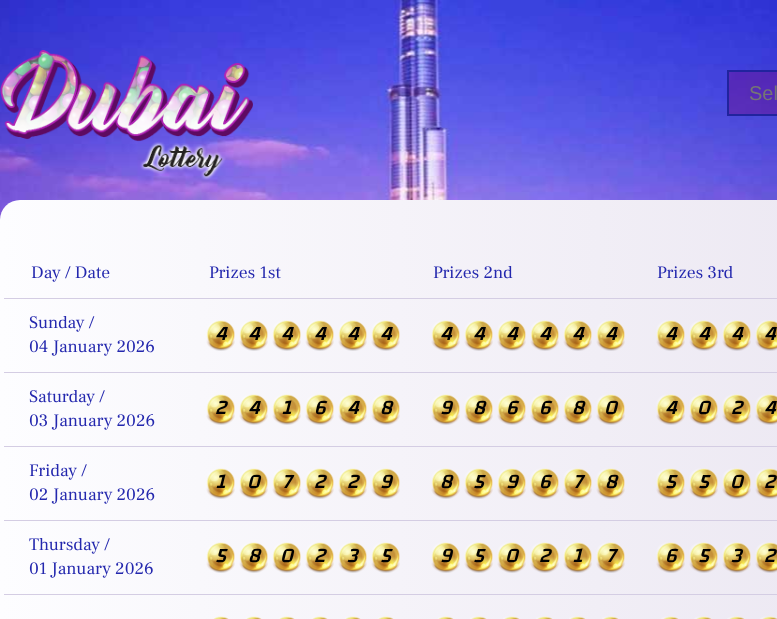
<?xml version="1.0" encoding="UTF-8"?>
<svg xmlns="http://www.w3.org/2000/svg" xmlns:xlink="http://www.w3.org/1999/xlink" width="777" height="619">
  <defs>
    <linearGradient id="g1" gradientUnits="userSpaceOnUse" x1="0" y1="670" x2="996" y2="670"><stop offset="0" stop-color="#fdfdff" /><stop offset="1" stop-color="#e9e4f0" /></linearGradient>
  </defs>
  <rect width="100%" height="100%" fill="#ffffff" />
  <image x="0" y="0" width="777" height="220" xlink:href="image1.png" />
  <image x="0" y="50" width="253" height="130" xlink:href="image2.png" />
  <rect x="728" y="71" width="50" height="44" fill="#730887" fill-opacity="0.41" stroke="#21239e" stroke-width="2" />
  <rect y="200" width="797" height="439" rx="20" fill="url(#g1)" />
  <rect x="4" y="298" width="773" height="1" fill="#d4cde3" />
  <image x="206" y="320" width="29" height="31" xlink:href="image3.png" />
  <image x="239" y="320" width="29" height="31" xlink:href="image4.png" />
  <image x="272" y="320" width="29" height="31" xlink:href="image5.png" />
  <image x="305" y="320" width="29" height="31" xlink:href="image6.png" />
  <image x="338" y="320" width="29" height="31" xlink:href="image7.png" />
  <image x="371" y="320" width="29" height="31" xlink:href="image8.png" />
  <image x="431" y="320" width="29" height="31" xlink:href="image9.png" />
  <image x="464" y="320" width="29" height="31" xlink:href="image10.png" />
  <image x="497" y="320" width="29" height="31" xlink:href="image11.png" />
  <image x="530" y="320" width="29" height="31" xlink:href="image12.png" />
  <image x="563" y="320" width="29" height="31" xlink:href="image13.png" />
  <image x="596" y="320" width="29" height="31" xlink:href="image14.png" />
  <image x="656" y="320" width="29" height="31" xlink:href="image15.png" />
  <image x="689" y="320" width="29" height="31" xlink:href="image16.png" />
  <image x="722" y="320" width="29" height="31" xlink:href="image17.png" />
  <image x="755" y="320" width="22" height="31" xlink:href="image18.png" />
  <rect x="4" y="372" width="773" height="1" fill="#d4cde3" />
  <image x="206" y="394" width="29" height="31" xlink:href="image3.png" />
  <image x="239" y="394" width="29" height="31" xlink:href="image4.png" />
  <image x="272" y="394" width="29" height="31" xlink:href="image5.png" />
  <image x="305" y="394" width="29" height="31" xlink:href="image6.png" />
  <image x="338" y="394" width="29" height="31" xlink:href="image7.png" />
  <image x="371" y="394" width="29" height="31" xlink:href="image8.png" />
  <image x="431" y="394" width="29" height="31" xlink:href="image9.png" />
  <image x="464" y="394" width="29" height="31" xlink:href="image10.png" />
  <image x="497" y="394" width="29" height="31" xlink:href="image11.png" />
  <image x="530" y="394" width="29" height="31" xlink:href="image12.png" />
  <image x="563" y="394" width="29" height="31" xlink:href="image13.png" />
  <image x="596" y="394" width="29" height="31" xlink:href="image14.png" />
  <image x="656" y="394" width="29" height="31" xlink:href="image15.png" />
  <image x="689" y="394" width="29" height="31" xlink:href="image16.png" />
  <image x="722" y="394" width="29" height="31" xlink:href="image17.png" />
  <image x="755" y="394" width="22" height="31" xlink:href="image18.png" />
  <rect x="4" y="446" width="773" height="1" fill="#d4cde3" />
  <image x="206" y="468" width="29" height="31" xlink:href="image3.png" />
  <image x="239" y="468" width="29" height="31" xlink:href="image4.png" />
  <image x="272" y="468" width="29" height="31" xlink:href="image5.png" />
  <image x="305" y="468" width="29" height="31" xlink:href="image6.png" />
  <image x="338" y="468" width="29" height="31" xlink:href="image7.png" />
  <image x="371" y="468" width="29" height="31" xlink:href="image8.png" />
  <image x="431" y="468" width="29" height="31" xlink:href="image9.png" />
  <image x="464" y="468" width="29" height="31" xlink:href="image10.png" />
  <image x="497" y="468" width="29" height="31" xlink:href="image11.png" />
  <image x="530" y="468" width="29" height="31" xlink:href="image12.png" />
  <image x="563" y="468" width="29" height="31" xlink:href="image13.png" />
  <image x="596" y="468" width="29" height="31" xlink:href="image14.png" />
  <image x="656" y="468" width="29" height="31" xlink:href="image15.png" />
  <image x="689" y="468" width="29" height="31" xlink:href="image16.png" />
  <image x="722" y="468" width="29" height="31" xlink:href="image17.png" />
  <image x="755" y="468" width="22" height="31" xlink:href="image18.png" />
  <rect x="4" y="520" width="773" height="1" fill="#d4cde3" />
  <image x="206" y="542" width="29" height="31" xlink:href="image3.png" />
  <image x="239" y="542" width="29" height="31" xlink:href="image4.png" />
  <image x="272" y="542" width="29" height="31" xlink:href="image5.png" />
  <image x="305" y="542" width="29" height="31" xlink:href="image6.png" />
  <image x="338" y="542" width="29" height="31" xlink:href="image7.png" />
  <image x="371" y="542" width="29" height="31" xlink:href="image8.png" />
  <image x="431" y="542" width="29" height="31" xlink:href="image9.png" />
  <image x="464" y="542" width="29" height="31" xlink:href="image10.png" />
  <image x="497" y="542" width="29" height="31" xlink:href="image11.png" />
  <image x="530" y="542" width="29" height="31" xlink:href="image12.png" />
  <image x="563" y="542" width="29" height="31" xlink:href="image13.png" />
  <image x="596" y="542" width="29" height="31" xlink:href="image14.png" />
  <image x="656" y="542" width="29" height="31" xlink:href="image15.png" />
  <image x="689" y="542" width="29" height="31" xlink:href="image16.png" />
  <image x="722" y="542" width="29" height="31" xlink:href="image17.png" />
  <image x="755" y="542" width="22" height="31" xlink:href="image18.png" />
  <rect x="4" y="594" width="773" height="1" fill="#d4cde3" />
  <image x="213" y="616" width="16" height="3" xlink:href="image19.png" />
  <image x="246" y="616" width="16" height="3" xlink:href="image20.png" />
  <image x="279" y="616" width="16" height="3" xlink:href="image21.png" />
  <image x="312" y="616" width="16" height="3" xlink:href="image22.png" />
  <image x="345" y="616" width="16" height="3" xlink:href="image23.png" />
  <image x="378" y="616" width="16" height="3" xlink:href="image24.png" />
  <image x="438" y="616" width="16" height="3" xlink:href="image25.png" />
  <image x="470" y="616" width="17" height="3" xlink:href="image26.png" />
  <image x="503" y="616" width="17" height="3" xlink:href="image27.png" />
  <image x="536" y="616" width="17" height="3" xlink:href="image28.png" />
  <image x="569" y="616" width="17" height="3" xlink:href="image29.png" />
  <image x="602" y="616" width="17" height="3" xlink:href="image30.png" />
  <image x="661" y="616" width="18" height="3" xlink:href="image31.png" />
  <image x="694" y="616" width="18" height="3" xlink:href="image32.png" />
  <image x="727" y="616" width="18" height="3" xlink:href="image33.png" />
  <image x="760" y="616" width="17" height="3" xlink:href="image34.png" />
  <text x="749" y="100" style="font-family: Liberation Sans; font-size: 20px; fill: #757575">Sel</text>
  <text x="31" y="278" style="font-family: Frank Ruhl Libre; font-size: 17.5px; fill: #2428ae">Day / Date</text>
  <text x="209" y="278" style="font-family: Frank Ruhl Libre; font-size: 17.5px; fill: #2428ae">Prizes 1st</text>
  <text x="433" y="278" style="font-family: Frank Ruhl Libre; font-size: 17.5px; fill: #2428ae">Prizes 2nd</text>
  <text x="657" y="278" style="font-family: Frank Ruhl Libre; font-size: 17.5px; fill: #2428ae">Prizes 3rd</text>
  <text x="29" y="328" style="font-family: Frank Ruhl Libre; font-size: 17.5px; fill: #2428ae">Sunday /</text>
  <text x="29" y="352" style="font-family: Frank Ruhl Libre; font-size: 17.5px; fill: #2428ae">04 January 2026</text>
  <text x="215" y="340" style="font-family: Changa; font-size: 20px; font-weight: bold; font-style: italic; fill: #000000">4</text>
  <text x="248" y="340" style="font-family: Changa; font-size: 20px; font-weight: bold; font-style: italic; fill: #000000">4</text>
  <text x="281" y="340" style="font-family: Changa; font-size: 20px; font-weight: bold; font-style: italic; fill: #000000">4</text>
  <text x="314" y="340" style="font-family: Changa; font-size: 20px; font-weight: bold; font-style: italic; fill: #000000">4</text>
  <text x="347" y="340" style="font-family: Changa; font-size: 20px; font-weight: bold; font-style: italic; fill: #000000">4</text>
  <text x="380" y="340" style="font-family: Changa; font-size: 20px; font-weight: bold; font-style: italic; fill: #000000">4</text>
  <text x="440" y="340" style="font-family: Changa; font-size: 20px; font-weight: bold; font-style: italic; fill: #000000">4</text>
  <text x="473" y="340" style="font-family: Changa; font-size: 20px; font-weight: bold; font-style: italic; fill: #000000">4</text>
  <text x="506" y="340" style="font-family: Changa; font-size: 20px; font-weight: bold; font-style: italic; fill: #000000">4</text>
  <text x="539" y="340" style="font-family: Changa; font-size: 20px; font-weight: bold; font-style: italic; fill: #000000">4</text>
  <text x="572" y="340" style="font-family: Changa; font-size: 20px; font-weight: bold; font-style: italic; fill: #000000">4</text>
  <text x="605" y="340" style="font-family: Changa; font-size: 20px; font-weight: bold; font-style: italic; fill: #000000">4</text>
  <text x="665" y="340" style="font-family: Changa; font-size: 20px; font-weight: bold; font-style: italic; fill: #000000">4</text>
  <text x="698" y="340" style="font-family: Changa; font-size: 20px; font-weight: bold; font-style: italic; fill: #000000">4</text>
  <text x="731" y="340" style="font-family: Changa; font-size: 20px; font-weight: bold; font-style: italic; fill: #000000">4</text>
  <text x="764" y="340" style="font-family: Changa; font-size: 20px; font-weight: bold; font-style: italic; fill: #000000">4</text>
  <text x="29" y="402" style="font-family: Frank Ruhl Libre; font-size: 17.5px; fill: #2428ae">Saturday /</text>
  <text x="29" y="426" style="font-family: Frank Ruhl Libre; font-size: 17.5px; fill: #2428ae">03 January 2026</text>
  <text x="215" y="414" style="font-family: Changa; font-size: 20px; font-weight: bold; font-style: italic; fill: #000000">2</text>
  <text x="248" y="414" style="font-family: Changa; font-size: 20px; font-weight: bold; font-style: italic; fill: #000000">4</text>
  <text x="282" y="414" style="font-family: Changa; font-size: 20px; font-weight: bold; font-style: italic; fill: #000000">1</text>
  <text x="314" y="414" style="font-family: Changa; font-size: 20px; font-weight: bold; font-style: italic; fill: #000000">6</text>
  <text x="347" y="414" style="font-family: Changa; font-size: 20px; font-weight: bold; font-style: italic; fill: #000000">4</text>
  <text x="380" y="414" style="font-family: Changa; font-size: 20px; font-weight: bold; font-style: italic; fill: #000000">8</text>
  <text x="440" y="414" style="font-family: Changa; font-size: 20px; font-weight: bold; font-style: italic; fill: #000000">9</text>
  <text x="473" y="414" style="font-family: Changa; font-size: 20px; font-weight: bold; font-style: italic; fill: #000000">8</text>
  <text x="506" y="414" style="font-family: Changa; font-size: 20px; font-weight: bold; font-style: italic; fill: #000000">6</text>
  <text x="539" y="414" style="font-family: Changa; font-size: 20px; font-weight: bold; font-style: italic; fill: #000000">6</text>
  <text x="572" y="414" style="font-family: Changa; font-size: 20px; font-weight: bold; font-style: italic; fill: #000000">8</text>
  <text x="604" y="414" style="font-family: Changa; font-size: 20px; font-weight: bold; font-style: italic; fill: #000000">0</text>
  <text x="665" y="414" style="font-family: Changa; font-size: 20px; font-weight: bold; font-style: italic; fill: #000000">4</text>
  <text x="697" y="414" style="font-family: Changa; font-size: 20px; font-weight: bold; font-style: italic; fill: #000000">0</text>
  <text x="731" y="414" style="font-family: Changa; font-size: 20px; font-weight: bold; font-style: italic; fill: #000000">2</text>
  <text x="764" y="414" style="font-family: Changa; font-size: 20px; font-weight: bold; font-style: italic; fill: #000000">4</text>
  <text x="29" y="476" style="font-family: Frank Ruhl Libre; font-size: 17.5px; fill: #2428ae">Friday /</text>
  <text x="29" y="500" style="font-family: Frank Ruhl Libre; font-size: 17.5px; fill: #2428ae">02 January 2026</text>
  <text x="216" y="488" style="font-family: Changa; font-size: 20px; font-weight: bold; font-style: italic; fill: #000000">1</text>
  <text x="247" y="488" style="font-family: Changa; font-size: 20px; font-weight: bold; font-style: italic; fill: #000000">0</text>
  <text x="282" y="488" style="font-family: Changa; font-size: 20px; font-weight: bold; font-style: italic; fill: #000000">7</text>
  <text x="314" y="488" style="font-family: Changa; font-size: 20px; font-weight: bold; font-style: italic; fill: #000000">2</text>
  <text x="347" y="488" style="font-family: Changa; font-size: 20px; font-weight: bold; font-style: italic; fill: #000000">2</text>
  <text x="380" y="488" style="font-family: Changa; font-size: 20px; font-weight: bold; font-style: italic; fill: #000000">9</text>
  <text x="440" y="488" style="font-family: Changa; font-size: 20px; font-weight: bold; font-style: italic; fill: #000000">8</text>
  <text x="473" y="488" style="font-family: Changa; font-size: 20px; font-weight: bold; font-style: italic; fill: #000000">5</text>
  <text x="506" y="488" style="font-family: Changa; font-size: 20px; font-weight: bold; font-style: italic; fill: #000000">9</text>
  <text x="539" y="488" style="font-family: Changa; font-size: 20px; font-weight: bold; font-style: italic; fill: #000000">6</text>
  <text x="573" y="488" style="font-family: Changa; font-size: 20px; font-weight: bold; font-style: italic; fill: #000000">7</text>
  <text x="605" y="488" style="font-family: Changa; font-size: 20px; font-weight: bold; font-style: italic; fill: #000000">8</text>
  <text x="665" y="488" style="font-family: Changa; font-size: 20px; font-weight: bold; font-style: italic; fill: #000000">5</text>
  <text x="698" y="488" style="font-family: Changa; font-size: 20px; font-weight: bold; font-style: italic; fill: #000000">5</text>
  <text x="730" y="488" style="font-family: Changa; font-size: 20px; font-weight: bold; font-style: italic; fill: #000000">0</text>
  <text x="764" y="488" style="font-family: Changa; font-size: 20px; font-weight: bold; font-style: italic; fill: #000000">2</text>
  <text x="29" y="550" style="font-family: Frank Ruhl Libre; font-size: 17.5px; fill: #2428ae">Thursday /</text>
  <text x="29" y="574" style="font-family: Frank Ruhl Libre; font-size: 17.5px; fill: #2428ae">01 January 2026</text>
  <text x="215" y="562" style="font-family: Changa; font-size: 20px; font-weight: bold; font-style: italic; fill: #000000">5</text>
  <text x="248" y="562" style="font-family: Changa; font-size: 20px; font-weight: bold; font-style: italic; fill: #000000">8</text>
  <text x="280" y="562" style="font-family: Changa; font-size: 20px; font-weight: bold; font-style: italic; fill: #000000">0</text>
  <text x="314" y="562" style="font-family: Changa; font-size: 20px; font-weight: bold; font-style: italic; fill: #000000">2</text>
  <text x="347" y="562" style="font-family: Changa; font-size: 20px; font-weight: bold; font-style: italic; fill: #000000">3</text>
  <text x="380" y="562" style="font-family: Changa; font-size: 20px; font-weight: bold; font-style: italic; fill: #000000">5</text>
  <text x="440" y="562" style="font-family: Changa; font-size: 20px; font-weight: bold; font-style: italic; fill: #000000">9</text>
  <text x="473" y="562" style="font-family: Changa; font-size: 20px; font-weight: bold; font-style: italic; fill: #000000">5</text>
  <text x="505" y="562" style="font-family: Changa; font-size: 20px; font-weight: bold; font-style: italic; fill: #000000">0</text>
  <text x="539" y="562" style="font-family: Changa; font-size: 20px; font-weight: bold; font-style: italic; fill: #000000">2</text>
  <text x="573" y="562" style="font-family: Changa; font-size: 20px; font-weight: bold; font-style: italic; fill: #000000">1</text>
  <text x="606" y="562" style="font-family: Changa; font-size: 20px; font-weight: bold; font-style: italic; fill: #000000">7</text>
  <text x="665" y="562" style="font-family: Changa; font-size: 20px; font-weight: bold; font-style: italic; fill: #000000">6</text>
  <text x="698" y="562" style="font-family: Changa; font-size: 20px; font-weight: bold; font-style: italic; fill: #000000">5</text>
  <text x="731" y="562" style="font-family: Changa; font-size: 20px; font-weight: bold; font-style: italic; fill: #000000">3</text>
  <text x="764" y="562" style="font-family: Changa; font-size: 20px; font-weight: bold; font-style: italic; fill: #000000">2</text>
</svg>
